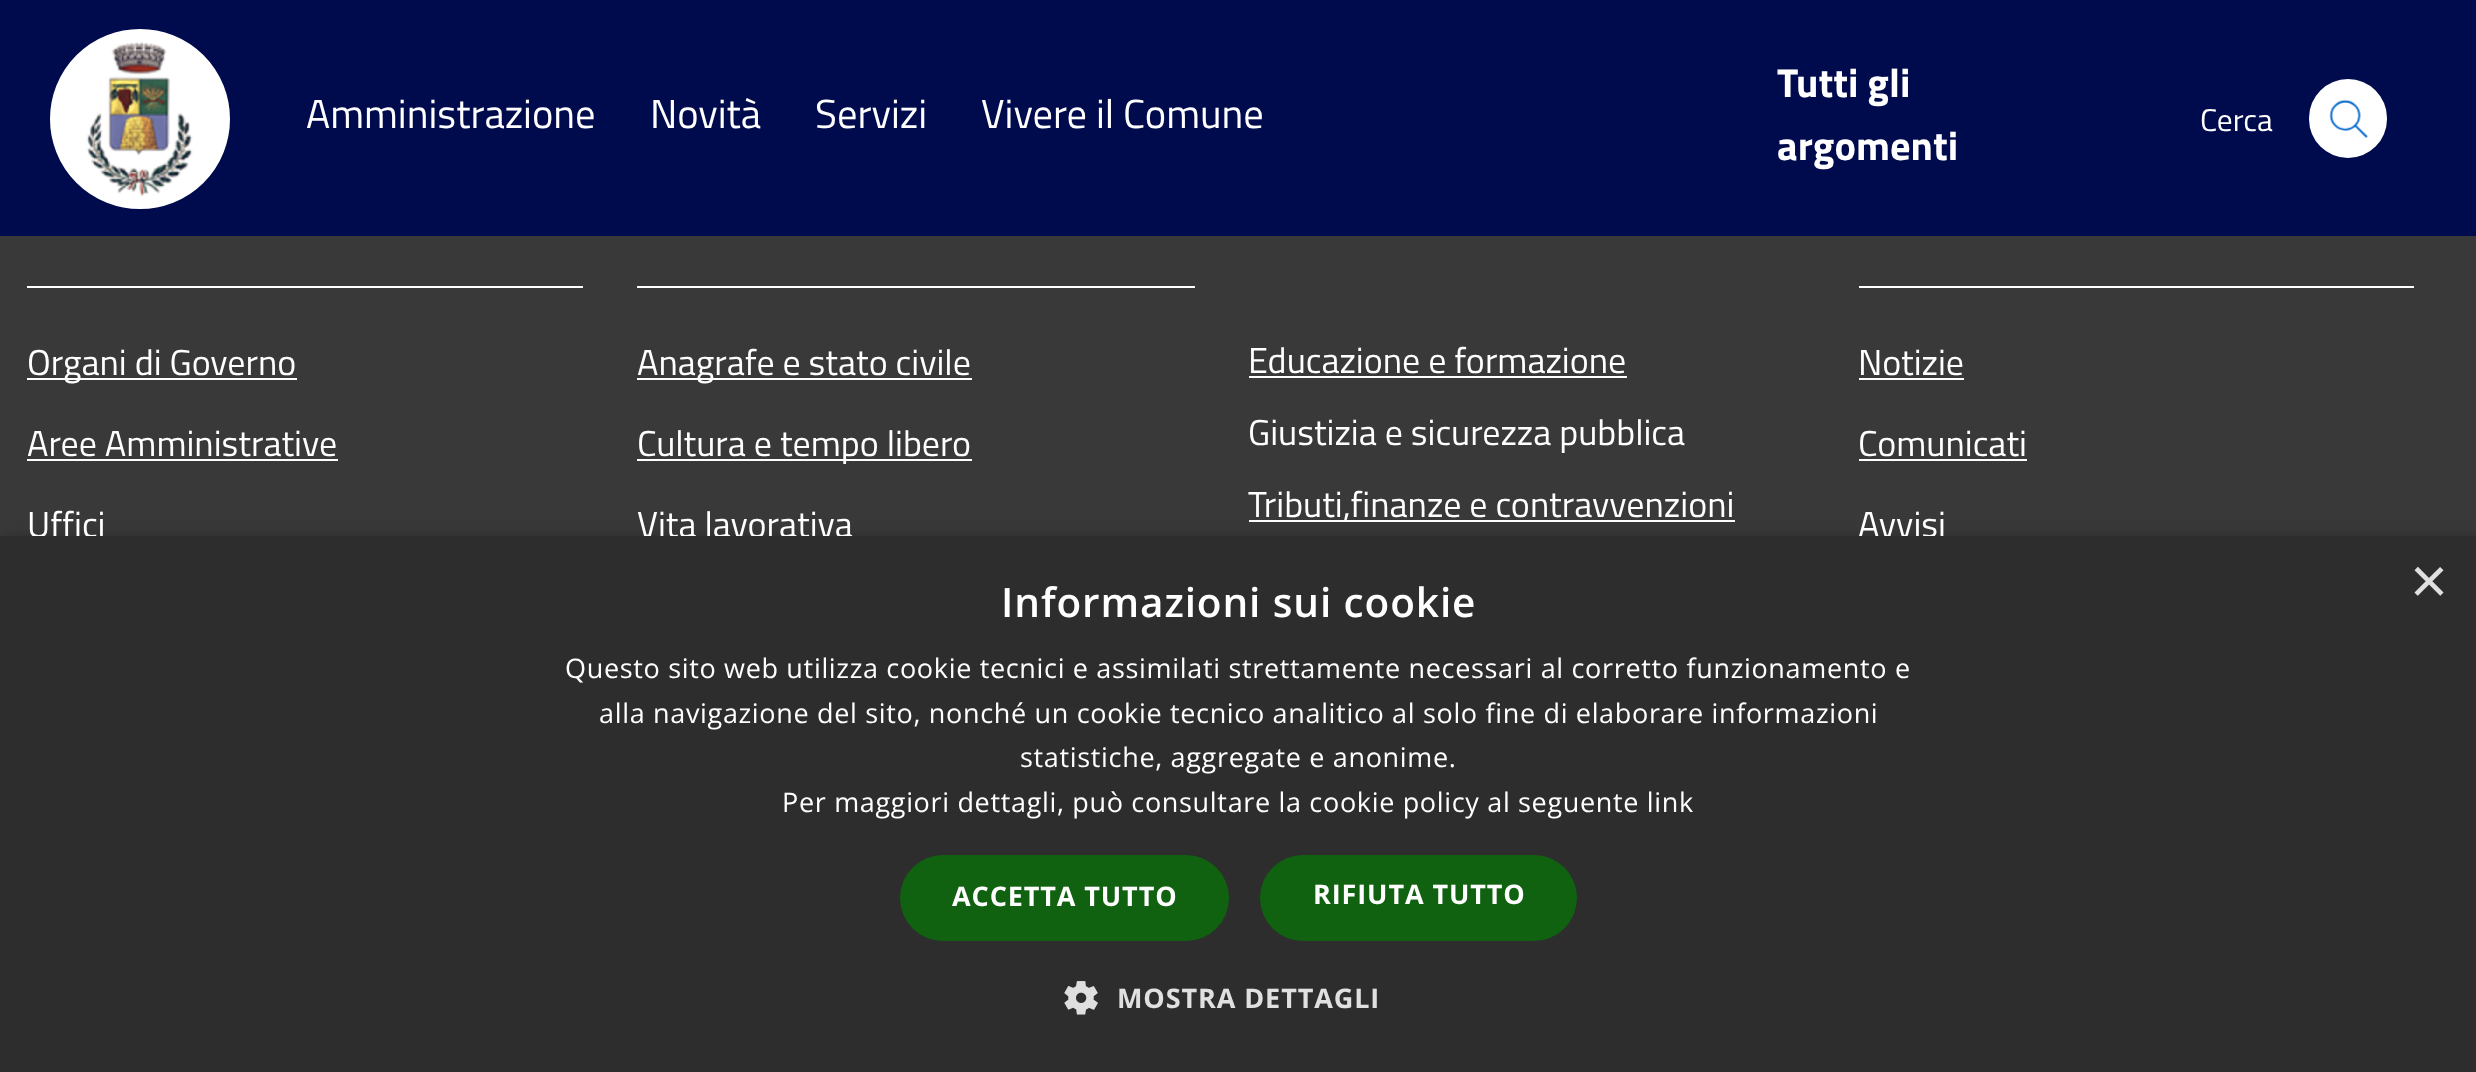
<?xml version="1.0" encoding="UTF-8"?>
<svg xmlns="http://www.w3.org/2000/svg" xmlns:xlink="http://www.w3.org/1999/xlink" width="2476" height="1072">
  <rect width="100%" height="100%" fill="#393939" />
  <rect width="2476" height="236" fill="#000b4d" />
  <circle cx="140" cy="119" r="89" fill="#ffffff" stroke="#ffffff" stroke-width="2" />
  <image x="86" y="42" width="107" height="155" xlink:href="image1.png" />
  <rect x="2309" y="79" width="78" height="79" rx="39" fill="#ffffff" />
  <image x="2329" y="99" width="39" height="39" xlink:href="image2.png" />
  <rect x="27" y="286" width="556" height="2" fill="#ffffff" />
  <rect x="27" y="378" width="270" height="2" fill="#ffffff" />
  <rect x="27" y="459" width="311" height="2" fill="#ffffff" />
  <rect x="637" y="286" width="558" height="2" fill="#ffffff" />
  <rect x="637" y="378" width="335" height="2" fill="#ffffff" />
  <rect x="637" y="459" width="335" height="2" fill="#ffffff" />
  <rect x="1249" y="376" width="378" height="2" fill="#ffffff" />
  <rect x="1249" y="520" width="486" height="2" fill="#ffffff" />
  <rect x="1859" y="286" width="555" height="2" fill="#ffffff" />
  <rect x="1859" y="378" width="105" height="2" fill="#ffffff" />
  <rect x="1859" y="459" width="168" height="2" fill="#ffffff" />
  <rect x="2" y="540" width="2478" height="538" fill="#000000" fill-opacity="0.35" filter="blur(9px)" />
  <text x="306" y="128" style="font-family: Titillium Web; font-size: 40.5px; fill: #ffffff">Amministrazione</text>
  <text x="650" y="128" style="font-family: Titillium Web; font-size: 40.5px; fill: #ffffff">Novità</text>
  <text x="815" y="128" style="font-family: Titillium Web; font-size: 40.5px; fill: #ffffff">Servizi</text>
  <text x="981" y="128" style="font-family: Titillium Web; font-size: 40.5px; fill: #ffffff">Vivere il Comune</text>
  <text x="1777" y="97" style="font-family: Titillium Web; font-size: 40.5px; font-weight: bold; fill: #ffffff">Tutti gli</text>
  <text x="1777" y="160" style="font-family: Titillium Web; font-size: 40.5px; font-weight: bold; fill: #ffffff">argomenti</text>
  <text x="2200" y="131" style="font-family: Titillium Web; font-size: 31.5px; fill: #ffffff">Cerca</text>
  <text x="27" y="375" style="font-family: Titillium Web; font-size: 36px; fill: #ffffff">Organi di Governo</text>
  <text x="27" y="456" style="font-family: Titillium Web; font-size: 36px; fill: #ffffff">Aree Amministrative</text>
  <text x="27" y="537" style="font-family: Titillium Web; font-size: 36px; fill: #ffffff">Uffici</text>
  <text x="637" y="375" style="font-family: Titillium Web; font-size: 36px; fill: #ffffff">Anagrafe e stato civile</text>
  <text x="637" y="456" style="font-family: Titillium Web; font-size: 36px; fill: #ffffff">Cultura e tempo libero</text>
  <text x="637" y="537" style="font-family: Titillium Web; font-size: 36px; fill: #ffffff">Vita lavorativa</text>
  <text x="1248" y="373" style="font-family: Titillium Web; font-size: 36px; fill: #ffffff">Educazione e formazione</text>
  <text x="1248" y="445" style="font-family: Titillium Web; font-size: 36px; fill: #ffffff">Giustizia e sicurezza pubblica</text>
  <text x="1248" y="517" style="font-family: Titillium Web; font-size: 36px; fill: #ffffff">Tributi,finanze e contravvenzioni</text>
  <text x="1858" y="375" style="font-family: Titillium Web; font-size: 36px; fill: #ffffff">Notizie</text>
  <text x="1858" y="456" style="font-family: Titillium Web; font-size: 36px; fill: #ffffff">Comunicati</text>
  <text x="1858" y="537" style="font-family: Titillium Web; font-size: 36px; fill: #ffffff">Avvisi</text>
  <rect y="536" width="2476" height="536" fill="#2d2d2d" />
  <text x="2410" y="603" style="font-family: Liberation Sans; font-size: 65px; fill: #e0e0e0">×</text>
  <text x="1001" y="617" style="font-family: Open Sans; font-size: 40.5px; font-weight: 600; letter-spacing: 0.9px; fill: #ffffff">Informazioni sui cookie</text>
  <text x="565" y="678" style="font-family: Open Sans; font-size: 27px; letter-spacing: 0.67px; fill: #ffffff">Questo sito web utilizza cookie tecnici e assimilati strettamente necessari al corretto funzionamento e</text>
  <text x="599" y="723" style="font-family: Open Sans; font-size: 27px; letter-spacing: 0.67px; fill: #ffffff">alla navigazione del sito, nonché un cookie tecnico analitico al solo fine di elaborare informazioni</text>
  <text x="1020" y="767" style="font-family: Open Sans; font-size: 27px; letter-spacing: 0.67px; fill: #ffffff">statistiche, aggregate e anonime.</text>
  <text x="782" y="812" style="font-family: Open Sans; font-size: 27px; letter-spacing: 0.67px; fill: #ffffff">Per maggiori dettagli, può consultare la cookie policy al seguente link</text>
  <rect x="900" y="855" width="329" height="86" rx="43" fill="#106110" />
  <text x="952" y="906" style="font-family: Open Sans; font-size: 27px; font-weight: bold; letter-spacing: 0.9px; fill: #ffffff">ACCETTA TUTTO</text>
  <rect x="1260" y="855" width="317" height="86" rx="43" fill="#106110" />
  <text x="1313" y="904" style="font-family: Open Sans; font-size: 27px; font-weight: bold; letter-spacing: 0.9px; fill: #ffffff">RIFIUTA TUTTO</text>
  <image x="1064" y="981" width="34" height="34" xlink:href="image3.png" />
  <text x="1117" y="1008" style="font-family: Open Sans; font-size: 27px; font-weight: bold; letter-spacing: 0.9px; fill: #e0e0e0">MOSTRA DETTAGLI</text>
</svg>
